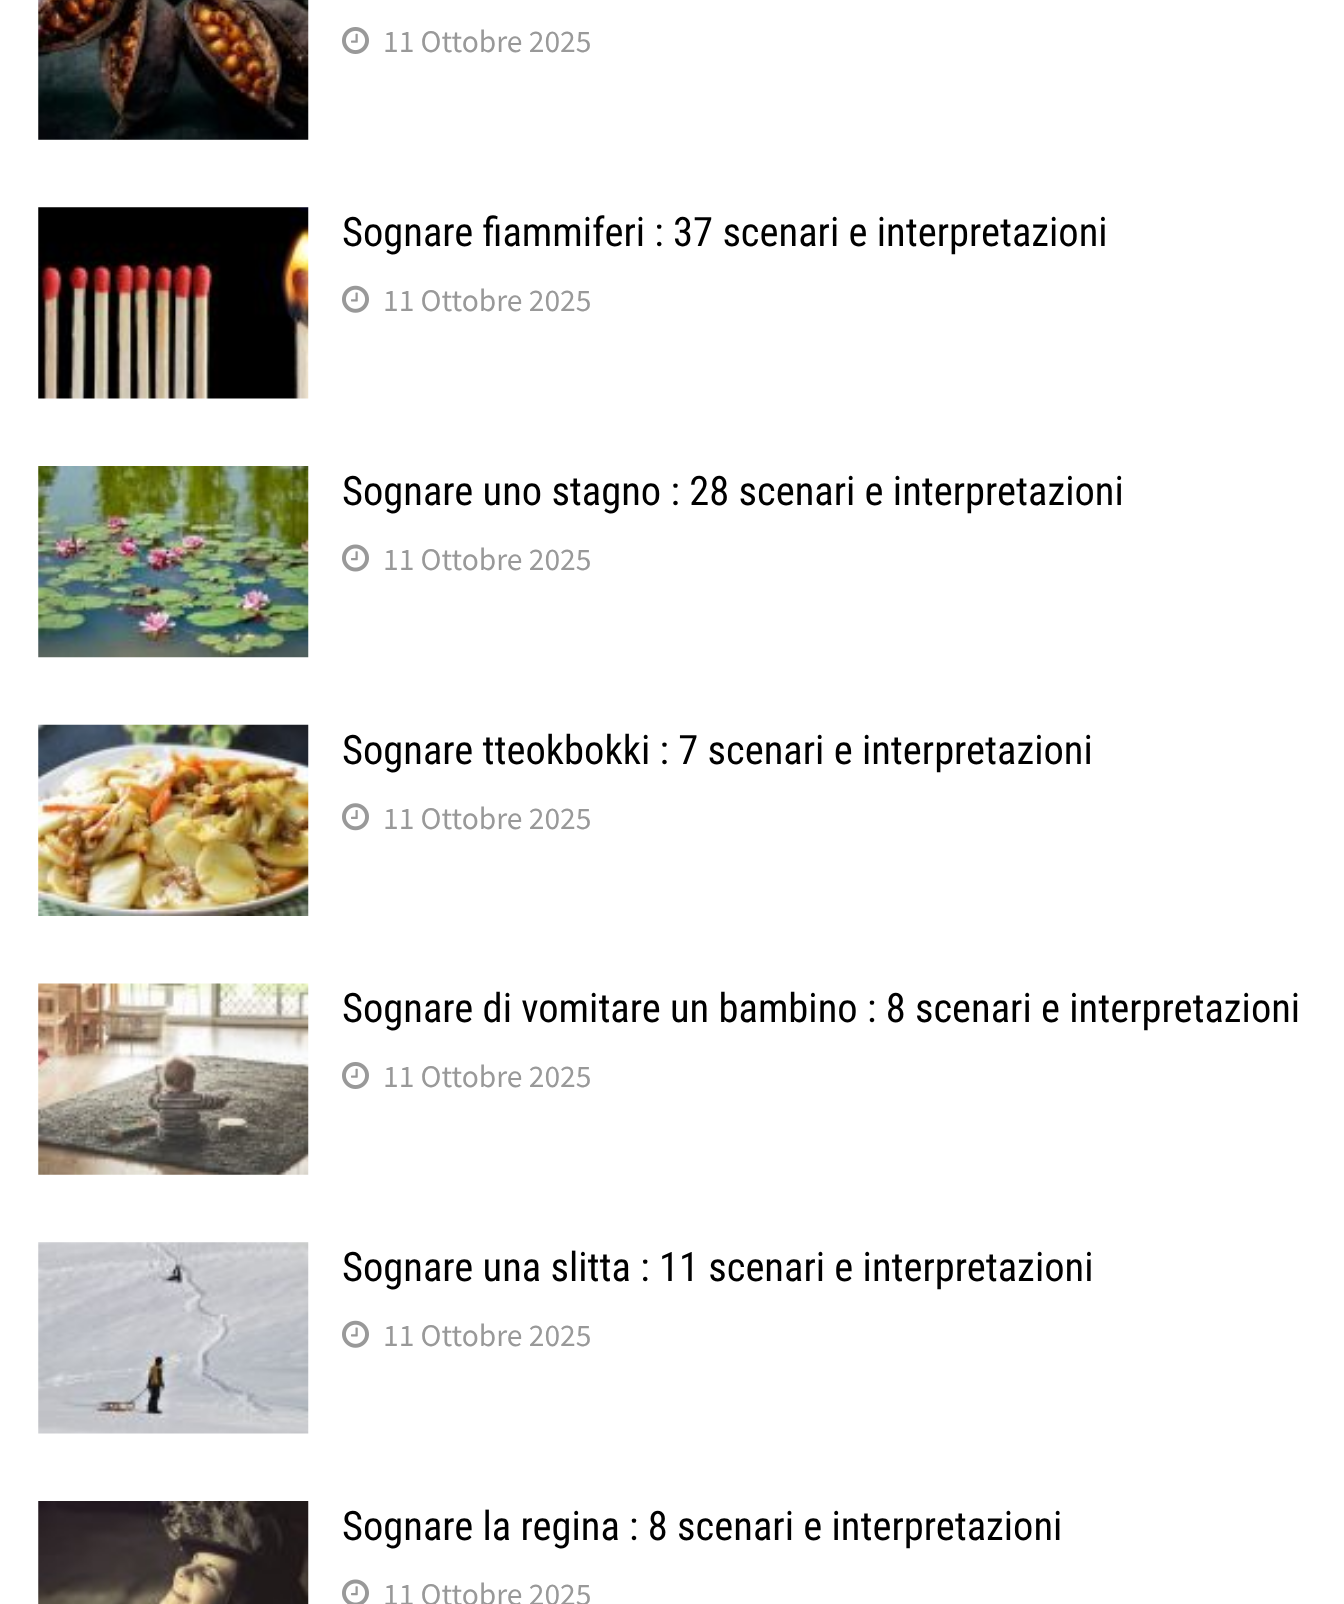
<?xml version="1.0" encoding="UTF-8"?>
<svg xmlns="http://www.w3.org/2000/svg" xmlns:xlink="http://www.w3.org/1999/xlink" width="1344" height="1604">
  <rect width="100%" height="100%" fill="#ffffff" />
  <image x="38" y="0" width="271" height="140" xlink:href="image1.png" />
  <image x="342" y="27" width="27" height="27" xlink:href="image2.png" />
  <image x="38" y="207" width="271" height="192" xlink:href="image3.png" />
  <image x="342" y="285" width="27" height="28" xlink:href="image4.png" />
  <image x="38" y="466" width="271" height="192" xlink:href="image5.png" />
  <image x="342" y="544" width="27" height="28" xlink:href="image6.png" />
  <image x="38" y="724" width="271" height="192" xlink:href="image7.png" />
  <image x="342" y="803" width="27" height="28" xlink:href="image8.png" />
  <image x="38" y="983" width="271" height="192" xlink:href="image9.png" />
  <image x="342" y="1062" width="27" height="27" xlink:href="image2.png" />
  <image x="38" y="1242" width="271" height="192" xlink:href="image10.png" />
  <image x="342" y="1320" width="27" height="28" xlink:href="image4.png" />
  <image x="38" y="1501" width="271" height="103" xlink:href="image11.png" />
  <image x="342" y="1579" width="27" height="25" xlink:href="image12.png" />
  <text x="383" y="52" style="font-family: Source Sans Pro; font-size: 31.5px; fill: #999999">11 Ottobre 2025</text>
  <text x="342" y="246" style="font-family: Roboto Condensed; font-size: 40.5px; fill: #000000">Sognare fiammiferi : 37 scenari e interpretazioni</text>
  <text x="383" y="311" style="font-family: Source Sans Pro; font-size: 31.5px; fill: #999999">11 Ottobre 2025</text>
  <text x="342" y="505" style="font-family: Roboto Condensed; font-size: 40.5px; fill: #000000">Sognare uno stagno : 28 scenari e interpretazioni</text>
  <text x="383" y="570" style="font-family: Source Sans Pro; font-size: 31.5px; fill: #999999">11 Ottobre 2025</text>
  <text x="342" y="764" style="font-family: Roboto Condensed; font-size: 40.5px; fill: #000000">Sognare tteokbokki : 7 scenari e interpretazioni</text>
  <text x="383" y="829" style="font-family: Source Sans Pro; font-size: 31.5px; fill: #999999">11 Ottobre 2025</text>
  <text x="342" y="1022" style="font-family: Roboto Condensed; font-size: 40.5px; fill: #000000">Sognare di vomitare un bambino : 8 scenari e interpretazioni</text>
  <text x="383" y="1087" style="font-family: Source Sans Pro; font-size: 31.5px; fill: #999999">11 Ottobre 2025</text>
  <text x="342" y="1281" style="font-family: Roboto Condensed; font-size: 40.5px; fill: #000000">Sognare una slitta : 11 scenari e interpretazioni</text>
  <text x="383" y="1346" style="font-family: Source Sans Pro; font-size: 31.5px; fill: #999999">11 Ottobre 2025</text>
  <text x="342" y="1540" style="font-family: Roboto Condensed; font-size: 40.5px; fill: #000000">Sognare la regina : 8 scenari e interpretazioni</text>
  <text x="383" y="1605" style="font-family: Source Sans Pro; font-size: 31.5px; fill: #999999">11 Ottobre 2025</text>
</svg>
